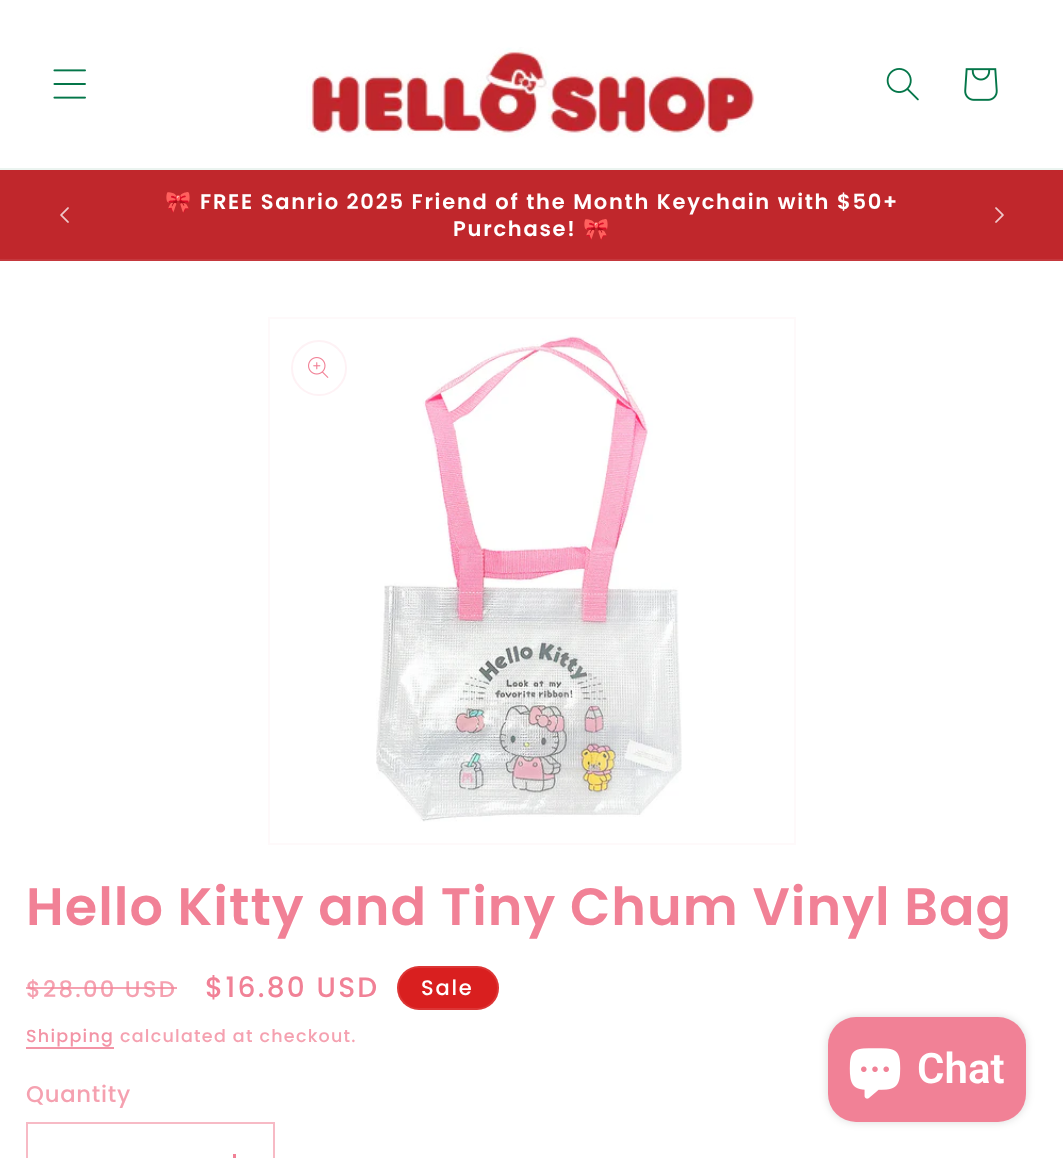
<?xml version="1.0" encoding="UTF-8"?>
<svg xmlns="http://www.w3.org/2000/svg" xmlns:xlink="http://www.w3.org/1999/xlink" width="1063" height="1158">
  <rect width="100%" height="100%" fill="#ffffff" />
  <rect y="168" width="1063" height="2" fill="#ebf4f0" />
  <image x="53" y="69" width="33" height="30" xlink:href="image1.png" />
  <image x="306" y="47" width="449" height="91" xlink:href="image2.png" />
  <image x="886" y="68" width="33" height="33" xlink:href="image3.png" />
  <image x="964" y="68" width="34" height="33" xlink:href="image4.png" />
  <rect y="170" width="1063" height="89" fill="#c0272c" />
  <rect y="259" width="1063" height="2" fill="#c5383d" />
  <image x="60" y="207" width="9" height="16" xlink:href="image5.png" />
  <image x="995" y="207" width="9" height="16" xlink:href="image6.png" />
  <rect x="269" y="318" width="526" height="526" fill="none" stroke="#fef9fa" stroke-width="2" />
  <circle cx="319" cy="368" r="27" fill="none" stroke="#fef2f5" stroke-width="2" />
  <image x="308" y="357" width="21" height="21" xlink:href="image7.png" />
  <image x="376" y="335" width="306" height="487" xlink:href="image8.png" />
  <rect x="397" y="966" width="102" height="44" rx="22" fill="#d91f1f" />
  <rect x="398" y="967" width="100" height="42" rx="21" fill="none" stroke="#ffffff" stroke-opacity="0.1" stroke-width="2" />
  <rect x="26" y="1047" width="88" height="2" fill="#f394a6" />
  <rect x="233" y="1154" width="3" height="4" fill="#f18196" />
  <rect x="27" y="1123" width="247" height="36" fill="none" stroke="#f7bac5" stroke-width="2" />
  <rect x="828" y="1017" width="198" height="105" rx="28" fill="#000000" fill-opacity="0.15" filter="blur(4.5px)" />
  <rect x="828" y="1017" width="198" height="105" rx="28" fill="#f18196" />
  <image x="849" y="1048" width="52" height="51" xlink:href="image9.png" />
  <text x="165" y="209" style="font-family: Noto Color Emoji; font-size: 21px; font-weight: bold; letter-spacing: 1.75px; fill: #ffffff">🎀</text>
  <text x="200" y="209" style="font-family: Poppins; font-size: 21px; font-weight: 600; letter-spacing: 1.75px; fill: #ffffff">FREE Sanrio 2025 Friend of the Month Keychain with $50+</text>
  <text x="453" y="236" style="font-family: Poppins; font-size: 21px; font-weight: 600; letter-spacing: 1.75px; fill: #ffffff">Purchase!</text>
  <text x="583" y="236" style="font-family: Noto Color Emoji; font-size: 21px; font-weight: bold; letter-spacing: 1.75px; fill: #ffffff">🎀</text>
  <text x="26" y="925" style="font-family: Poppins; font-size: 52.5px; font-weight: 600; letter-spacing: 1.05px; fill: #f18196">Hello Kitty and Tiny Chum Vinyl Bag</text>
  <text x="26" y="997" style="font-family: Poppins; font-size: 22.75px; font-weight: 500; letter-spacing: 2.25px; fill: #f5a1b0">$28.00 USD</text>
  <rect x="26" y="987" width="151" height="2" fill="#f18196" fill-opacity="0.75" />
  <text x="205" y="997" style="font-family: Poppins; font-size: 28px; font-weight: 500; letter-spacing: 2.25px; fill: #f18196">$16.80 USD</text>
  <text x="421" y="995" style="font-family: Poppins; font-size: 21px; font-weight: 500; letter-spacing: 1.75px; fill: #ffffff">Sale</text>
  <text x="26" y="1042" style="font-family: Poppins; font-size: 17.5px; font-weight: 500; letter-spacing: 1.25px; fill: #f394a6">Shipping</text>
  <text x="120" y="1042" style="font-family: Poppins; font-size: 17.5px; font-weight: 500; letter-spacing: 1.25px; fill: #f5a1b0">calculated at checkout.</text>
  <text x="26" y="1102" style="font-family: Poppins; font-size: 22.75px; font-weight: 500; letter-spacing: 0.75px; fill: #f5a1b0">Quantity</text>
  <text x="917" y="1083" style="font-family: Roboto; font-size: 42px; font-weight: 600; fill: #ffffff">Chat</text>
</svg>
